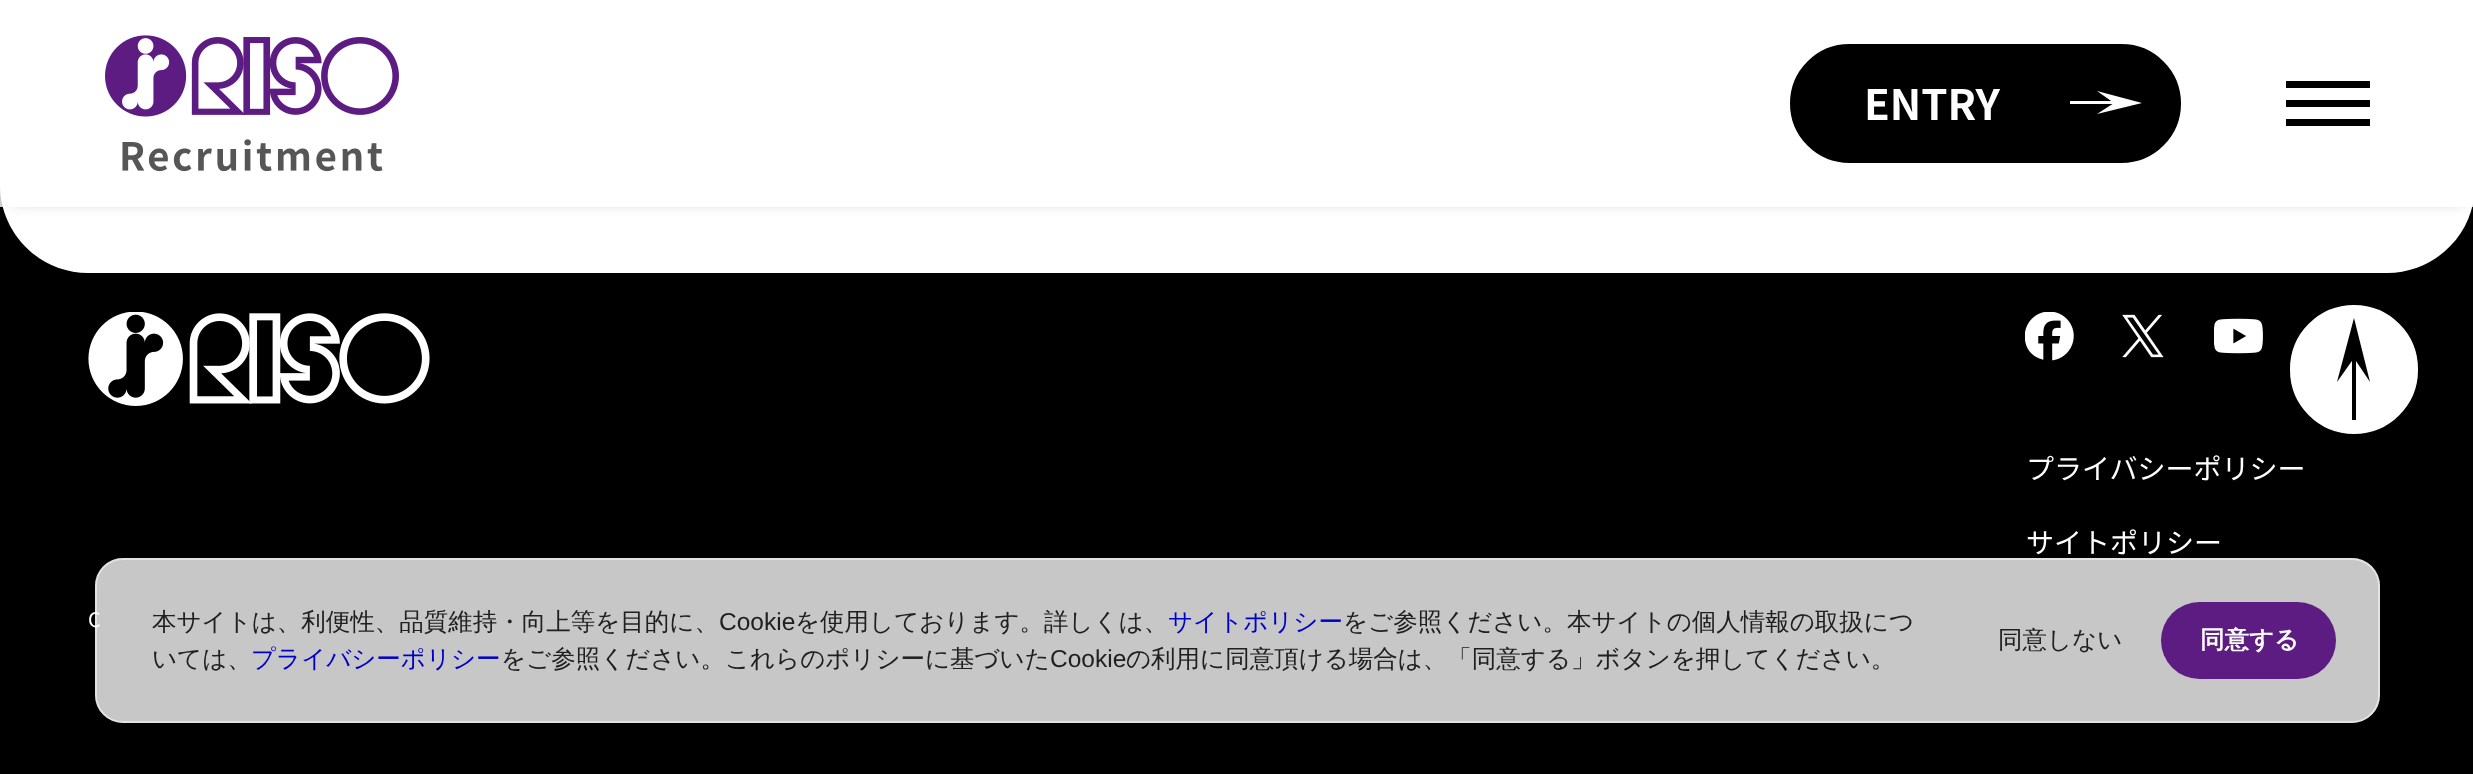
<?xml version="1.0" encoding="UTF-8"?>
<svg xmlns="http://www.w3.org/2000/svg" xmlns:xlink="http://www.w3.org/1999/xlink" width="2473" height="774">
  <defs>
    <clipPath id="clip1"><path d="M 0 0 h 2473 v 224 h -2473 z m 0 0 h 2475 v 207 h -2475 z" clip-rule="evenodd" /></clipPath>
    <clipPath id="clip2"><path d="M 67 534 h 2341 v 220 h -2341 z m 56 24 h 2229 c 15.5 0 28 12.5 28 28 v 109 c 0 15.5 -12.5 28 -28 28 h -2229 c -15.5 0 -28 -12.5 -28 -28 v -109 c 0 -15.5 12.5 -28 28 -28 z" clip-rule="evenodd" /></clipPath>
  </defs>
  <rect width="100%" height="100%" fill="#000000" />
  <path d="M 0 -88 h 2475 v 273 c 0 48.5 -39.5 88 -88 88 h -2299 c -48.5 0 -88 -39.5 -88 -88 z" fill="#ffffff" />
  <g clip-path="url(#clip1)">
    <rect x="11" y="11" width="2453" height="185" fill="#000000" fill-opacity="0.6" filter="blur(9px)" />
  </g>
  <rect y="186" width="2473" height="21" fill="#ffffff" fill-opacity="0.8" />
  <image x="105" y="35" width="294" height="137" xlink:href="image1.png" />
  <rect x="1792" y="46" width="387" height="115" rx="57.5" fill="#000000" stroke="#000000" stroke-width="4" />
  <rect x="2070" y="101" width="44" height="3" fill="#ffffff" />
  <path d="M 2097 114 l 17 -11 l -17 -12 l 45 12 z" fill="#ffffff" />
  <rect x="2286" y="81" width="84" height="7" fill="#000000" />
  <rect x="2286" y="100" width="84" height="7" fill="#000000" />
  <rect x="2286" y="119" width="84" height="7" fill="#000000" />
  <image x="2310" y="312" width="7" height="6" xlink:href="image6.png" />
  <rect x="2288" y="303" width="132" height="133" rx="66" fill="#ffffff" stroke="#000000" stroke-width="4" />
  <rect x="2352" y="358" width="4" height="62" fill="#000000" />
  <path d="M 2370 382 l -16 -24 l -17 24 l 17 -64 z" fill="#000000" />
  <image x="88" y="312" width="342" height="94" xlink:href="image2.png" />
  <image x="2025" y="312" width="49" height="49" xlink:href="image3.png" />
  <image x="2122" y="314" width="42" height="44" xlink:href="image4.png" />
  <image x="2214" y="318" width="49" height="36" xlink:href="image5.png" />
  <g clip-path="url(#clip2)">
    <rect x="95" y="562" width="2285" height="164" rx="28" fill="#000000" fill-opacity="0.3" filter="blur(9px)" />
  </g>
  <text x="1864" y="120" style="font-family: Noto Sans JP; font-size: 42px; font-weight: bold; fill: #ffffff">ENTRY</text>
  <text x="2026" y="479" style="font-family: Noto Sans JP; font-size: 28px; fill: #ffffff">プライバシーポリシー</text>
  <text x="2026" y="553" style="font-family: Noto Sans JP; font-size: 28px; fill: #ffffff">サイトポリシー</text>
  <text x="88" y="627" style="font-family: Noto Sans JP; font-size: 20px; fill: #ffffff">C</text>
  <rect x="95" y="558" width="2285" height="165" rx="28" fill="#ffffff" fill-opacity="0.78" />
  <rect x="96" y="559" width="2283" height="163" rx="27" fill="none" stroke="#ffffff" stroke-opacity="0.5" stroke-width="2" />
  <text x="152" y="630" style="font-family: WenQuanYi Zen Hei; font-size: 24.5px; font-weight: 500; fill: #202020">本サイトは、利便性、品質維持・向上等を目的に、</text>
  <text x="719" y="630" style="font-family: Liberation Sans; font-size: 24.5px; fill: #202020">Cookie</text>
  <text x="795" y="630" style="font-family: WenQuanYi Zen Hei; font-size: 24.5px; font-weight: 500; fill: #202020">を使用しております。詳しくは、</text>
  <text x="1168" y="630" style="font-family: WenQuanYi Zen Hei; font-size: 24.5px; font-weight: 500; fill: #0000cd">サイトポリシー</text>
  <text x="1343" y="630" style="font-family: WenQuanYi Zen Hei; font-size: 24.5px; font-weight: 500; fill: #202020">をご参照ください。本サイトの個人情報の取扱につ</text>
  <text x="152" y="667" style="font-family: WenQuanYi Zen Hei; font-size: 24.5px; font-weight: 500; fill: #202020">いては、</text>
  <text x="251" y="667" style="font-family: WenQuanYi Zen Hei; font-size: 24.5px; font-weight: 500; fill: #0000cd">プライバシーポリシー</text>
  <text x="501" y="667" style="font-family: WenQuanYi Zen Hei; font-size: 24.5px; font-weight: 500; fill: #202020">をご参照ください。これらのポリシーに基づいた</text>
  <text x="1050" y="667" style="font-family: Liberation Sans; font-size: 24.5px; fill: #202020">Cookie</text>
  <text x="1126" y="667" style="font-family: WenQuanYi Zen Hei; font-size: 24.5px; font-weight: 500; fill: #202020">の利用に同意頂ける場合は、「同意する」ボタンを押してください。</text>
  <text x="1998" y="648" style="font-family: WenQuanYi Zen Hei; font-size: 24.5px; font-weight: 500; fill: #202020">同意しない</text>
  <rect x="2161" y="602" width="175" height="77" rx="38.5" fill="#5d1c82" />
  <text x="2200" y="648" style="font-family: WenQuanYi Zen Hei; font-size: 24.5px; font-weight: bold; fill: #ffffff">同意する</text>
</svg>
